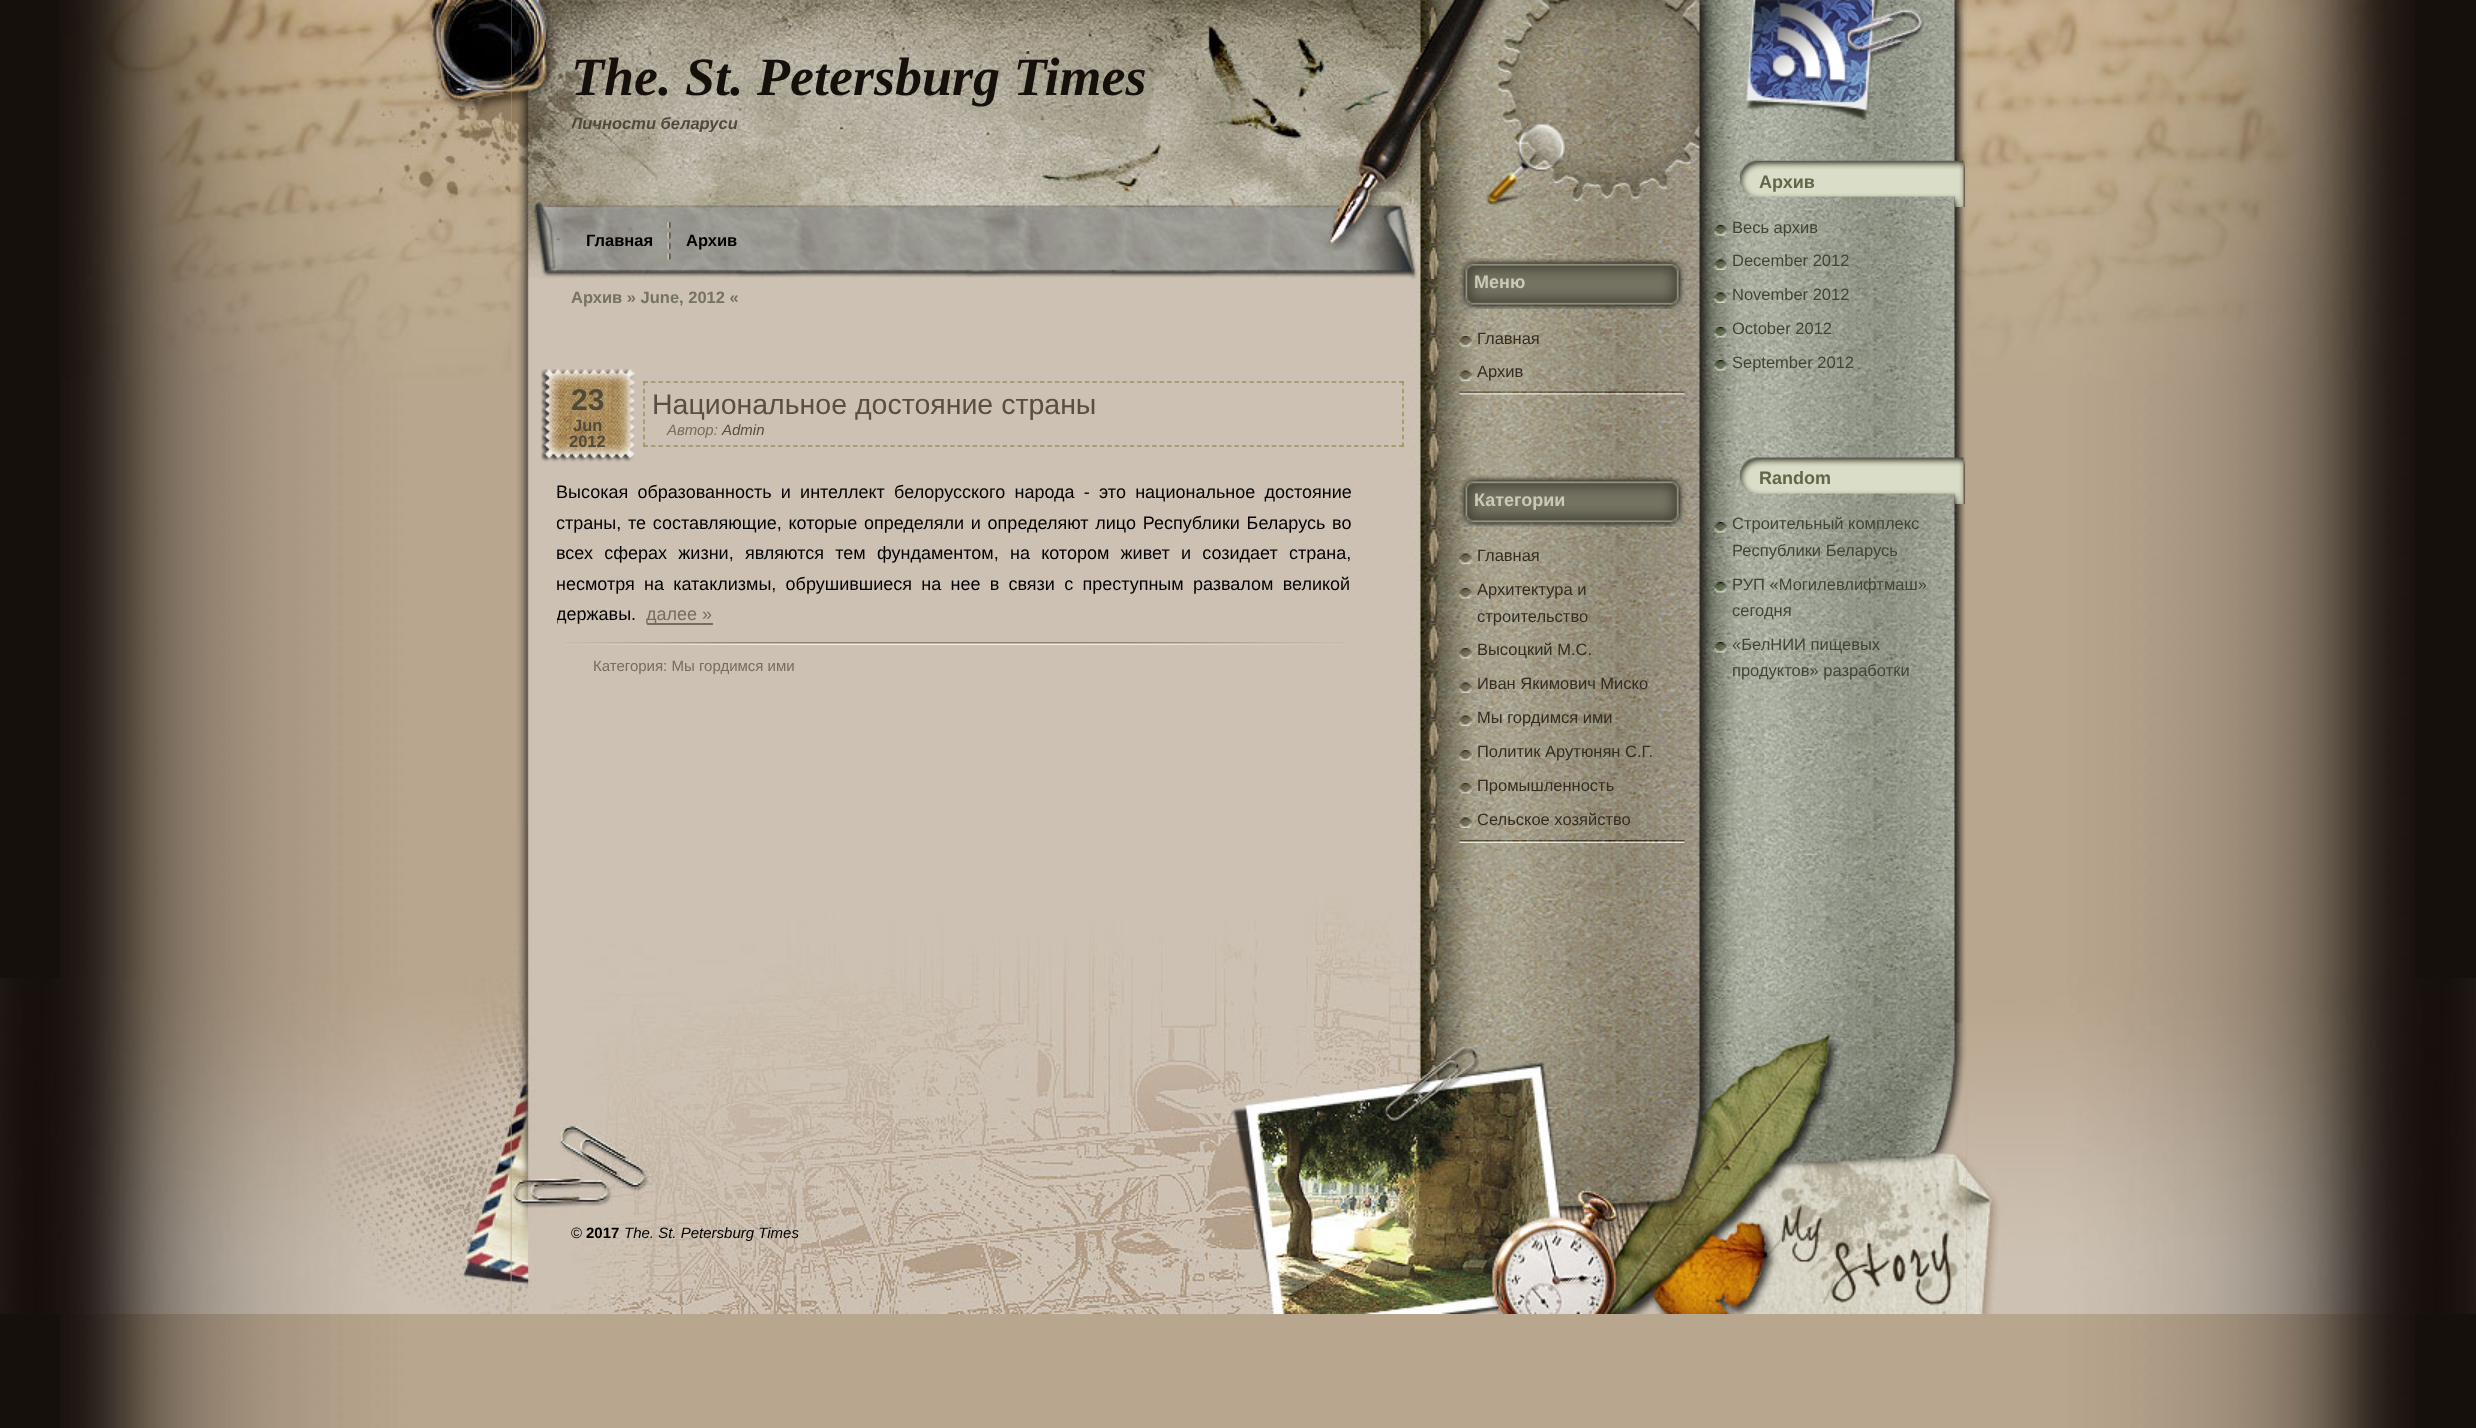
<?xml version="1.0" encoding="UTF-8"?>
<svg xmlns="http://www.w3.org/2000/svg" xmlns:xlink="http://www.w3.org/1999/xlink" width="2476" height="1428">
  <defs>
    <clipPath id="clip1"><rect x="572" y="108" width="825" height="24" /></clipPath>
    <clipPath id="clip2"><rect x="557" y="477" width="795" height="168" /></clipPath>
  </defs>
  <rect width="100%" height="100%" fill="#16100c" />
  <image x="60" y="0" width="2355" height="1428" xlink:href="image1.png" />
  <image x="59" y="0" width="2328" height="379" xlink:href="image2.png" />
  <image x="0" y="978" width="2476" height="336" xlink:href="image3.png" />
  <image x="511" y="0" width="1456" height="1314" xlink:href="image4.png" />
  <image x="511" y="0" width="1456" height="279" xlink:href="image5.png" />
  <image x="1746" y="0" width="178" height="120" xlink:href="image6.png" />
  <image x="667" y="222" width="4" height="38" xlink:href="image7.png" />
  <image x="512" y="823" width="1451" height="176" xlink:href="image8.png" />
  <image x="541" y="369" width="94" height="93" xlink:href="image9.png" />
  <path d="M 643.5 382 h 760.5" fill="none" stroke="#96935f" stroke-width="1.5" stroke-dasharray="4.5 2.98" />
  <path d="M 1403 381 v 66" fill="none" stroke="#96935f" stroke-width="1.5" stroke-dasharray="4.5 3.18" />
  <path d="M 643.5 446 h 760.5" fill="none" stroke="#96935f" stroke-width="1.5" stroke-dasharray="4.5 2.98" />
  <path d="M 644 381 v 66" fill="none" stroke="#96935f" stroke-width="1.5" stroke-dasharray="4.5 3.18" />
  <image x="564" y="642" width="780" height="3" xlink:href="image10.png" />
  <rect x="647" y="623" width="66" height="2" fill="#786c5c" />
  <image x="1459" y="258" width="226" height="51" xlink:href="image11.png" />
  <image x="1459" y="391" width="226" height="4" xlink:href="image12.png" />
  <image x="1459" y="336" width="13" height="11" xlink:href="image13.png" />
  <image x="1459" y="370" width="13" height="11" xlink:href="image14.png" />
  <image x="1459" y="475" width="226" height="52" xlink:href="image15.png" />
  <image x="1459" y="840" width="226" height="3" xlink:href="image16.png" />
  <image x="1459" y="553" width="13" height="11" xlink:href="image17.png" />
  <image x="1459" y="588" width="13" height="11" xlink:href="image18.png" />
  <image x="1459" y="648" width="13" height="11" xlink:href="image19.png" />
  <image x="1459" y="682" width="13" height="11" xlink:href="image20.png" />
  <image x="1459" y="715" width="13" height="11" xlink:href="image21.png" />
  <image x="1459" y="750" width="13" height="11" xlink:href="image22.png" />
  <image x="1459" y="783" width="13" height="11" xlink:href="image23.png" />
  <image x="1459" y="817" width="13" height="11" xlink:href="image24.png" />
  <image x="1740" y="160" width="225" height="47" xlink:href="image25.png" />
  <image x="1714" y="225" width="13" height="11" xlink:href="image26.png" />
  <image x="1714" y="259" width="13" height="11" xlink:href="image27.png" />
  <image x="1714" y="292" width="13" height="11" xlink:href="image28.png" />
  <image x="1714" y="327" width="13" height="11" xlink:href="image29.png" />
  <image x="1714" y="360" width="13" height="11" xlink:href="image30.png" />
  <image x="1740" y="457" width="225" height="47" xlink:href="image31.png" />
  <image x="1714" y="522" width="13" height="11" xlink:href="image32.png" />
  <image x="1714" y="582" width="13" height="11" xlink:href="image33.png" />
  <image x="1714" y="642" width="13" height="11" xlink:href="image34.png" />
  <image x="511" y="999" width="1456" height="315" xlink:href="image35.png" />
  <text x="571" y="95" style="font-family: Liberation Serif; font-size: 54px; font-weight: bold; font-style: italic; fill: #16100c">The. St. Petersburg Times</text>
  <g clip-path="url(#clip1)">
    <text x="571" y="129" style="font-family: Liberation Sans; font-size: 16.5px; font-weight: bold; font-style: italic; fill: #504a3b">Личности беларуси</text>
  </g>
  <text x="586" y="246" style="font-family: Liberation Sans; font-size: 16.5px; font-weight: bold; fill: #000000">Главная</text>
  <text x="686" y="246" style="font-family: Liberation Sans; font-size: 16.5px; font-weight: bold; fill: #000000">Архив</text>
  <text x="571" y="303" style="font-family: Liberation Sans; font-size: 16.5px; font-weight: bold; fill: #747260">Архив » June, 2012 «</text>
  <text x="571" y="410" style="font-family: Liberation Sans; font-size: 30px; font-weight: bold; fill: #504a3b">23</text>
  <text x="573" y="431" style="font-family: Liberation Sans; font-size: 16.5px; font-weight: bold; fill: #504a3b">Jun</text>
  <text x="569" y="447" style="font-family: Liberation Sans; font-size: 16.5px; font-weight: bold; fill: #504a3b">2012</text>
  <text x="652" y="414" style="font-family: Liberation Sans; font-size: 28.5px; fill: #584e42">Национальное достояние страны</text>
  <text x="667" y="435" style="font-family: Liberation Sans; font-size: 15px; font-style: italic; fill: #786c5c">Автор:</text>
  <text x="722" y="435" style="font-family: Liberation Sans; font-size: 15px; font-style: italic; fill: #584e42">Admin</text>
  <text x="556" y="498" word-spacing="4.25" style="font-family: Liberation Sans; font-size: 18px; fill: #000000">Высокая образованность и интеллект белорусского народа - это национальное достояние</text>
  <g clip-path="url(#clip2)">
    <text x="556" y="529" word-spacing="1.75" style="font-family: Liberation Sans; font-size: 18px; fill: #000000">страны, те составляющие, которые определяли и определяют лицо Республики Беларусь во</text>
  </g>
  <text x="556" y="559" word-spacing="6.25" style="font-family: Liberation Sans; font-size: 18px; fill: #000000">всех сферах жизни, являются тем фундаментом, на котором живет и созидает страна,</text>
  <text x="556" y="590" word-spacing="4.25" style="font-family: Liberation Sans; font-size: 18px; fill: #000000">несмотря на катаклизмы, обрушившиеся на нее в связи с преступным развалом великой</text>
  <g clip-path="url(#clip2)">
    <text x="556" y="620" style="font-family: Liberation Sans; font-size: 18px; fill: #000000">державы.</text>
  </g>
  <text x="646" y="620" style="font-family: Liberation Sans; font-size: 18px; fill: #786c5c">далее »</text>
  <text x="593" y="671" style="font-family: Liberation Sans; font-size: 15px; fill: #786c5c">Категория: Мы гордимся ими</text>
  <text x="1474" y="288" style="font-family: Liberation Sans; font-size: 18px; font-weight: bold; fill: #cbcab9">Меню</text>
  <text x="1477" y="344" style="font-family: Liberation Sans; font-size: 16.5px; fill: #322c21">Главная</text>
  <text x="1477" y="377" style="font-family: Liberation Sans; font-size: 16.5px; fill: #322c21">Архив</text>
  <text x="1474" y="506" style="font-family: Liberation Sans; font-size: 18px; font-weight: bold; fill: #cbcab9">Категории</text>
  <text x="1477" y="561" style="font-family: Liberation Sans; font-size: 16.5px; fill: #322c21">Главная</text>
  <text x="1477" y="595" style="font-family: Liberation Sans; font-size: 16.5px; fill: #322c21">Архитектура и</text>
  <text x="1477" y="622" style="font-family: Liberation Sans; font-size: 16.5px; fill: #322c21">строительство</text>
  <text x="1477" y="655" style="font-family: Liberation Sans; font-size: 16.5px; fill: #322c21">Высоцкий М.С.</text>
  <text x="1477" y="689" style="font-family: Liberation Sans; font-size: 16.5px; fill: #322c21">Иван Якимович Миско</text>
  <text x="1477" y="723" style="font-family: Liberation Sans; font-size: 16.5px; fill: #322c21">Мы гордимся ими</text>
  <text x="1477" y="757" style="font-family: Liberation Sans; font-size: 16.5px; fill: #322c21">Политик Арутюнян С.Г.</text>
  <text x="1477" y="791" style="font-family: Liberation Sans; font-size: 16.5px; fill: #322c21">Промышленность</text>
  <text x="1477" y="825" style="font-family: Liberation Sans; font-size: 16.5px; fill: #322c21">Сельское хозяйство</text>
  <text x="1759" y="188" style="font-family: Liberation Sans; font-size: 18px; font-weight: bold; fill: #606848">Архив</text>
  <text x="1732" y="233" style="font-family: Liberation Sans; font-size: 16.5px; fill: #3d4534">Весь архив</text>
  <text x="1732" y="266" style="font-family: Liberation Sans; font-size: 16.5px; fill: #3d4534">December 2012</text>
  <text x="1732" y="300" style="font-family: Liberation Sans; font-size: 16.5px; fill: #3d4534">November 2012</text>
  <text x="1732" y="334" style="font-family: Liberation Sans; font-size: 16.5px; fill: #3d4534">October 2012</text>
  <text x="1732" y="368" style="font-family: Liberation Sans; font-size: 16.5px; fill: #3d4534">September 2012</text>
  <text x="1759" y="484" style="font-family: Liberation Sans; font-size: 18px; font-weight: bold; fill: #606848">Random</text>
  <text x="1732" y="529" style="font-family: Liberation Sans; font-size: 16.5px; fill: #3d4534">Строительный комплекс</text>
  <text x="1732" y="556" style="font-family: Liberation Sans; font-size: 16.5px; fill: #3d4534">Республики Беларусь</text>
  <text x="1732" y="590" style="font-family: Liberation Sans; font-size: 16.5px; fill: #3d4534">РУП «Могилевлифтмаш»</text>
  <text x="1732" y="616" style="font-family: Liberation Sans; font-size: 16.5px; fill: #3d4534">сегодня</text>
  <text x="1732" y="650" style="font-family: Liberation Sans; font-size: 16.5px; fill: #3d4534">«БелНИИ пищевых</text>
  <text x="1732" y="676" style="font-family: Liberation Sans; font-size: 16.5px; fill: #3d4534">продуктов» разработки</text>
  <text x="571" y="1238" style="font-family: Liberation Sans; font-size: 15px; fill: #000000">©</text>
  <text x="586" y="1238" style="font-family: Liberation Sans; font-size: 15px; font-weight: bold; fill: #000000">2017</text>
  <text x="624" y="1238" style="font-family: Liberation Sans; font-size: 15px; font-style: italic; fill: #000000">The. St. Petersburg Times</text>
</svg>
